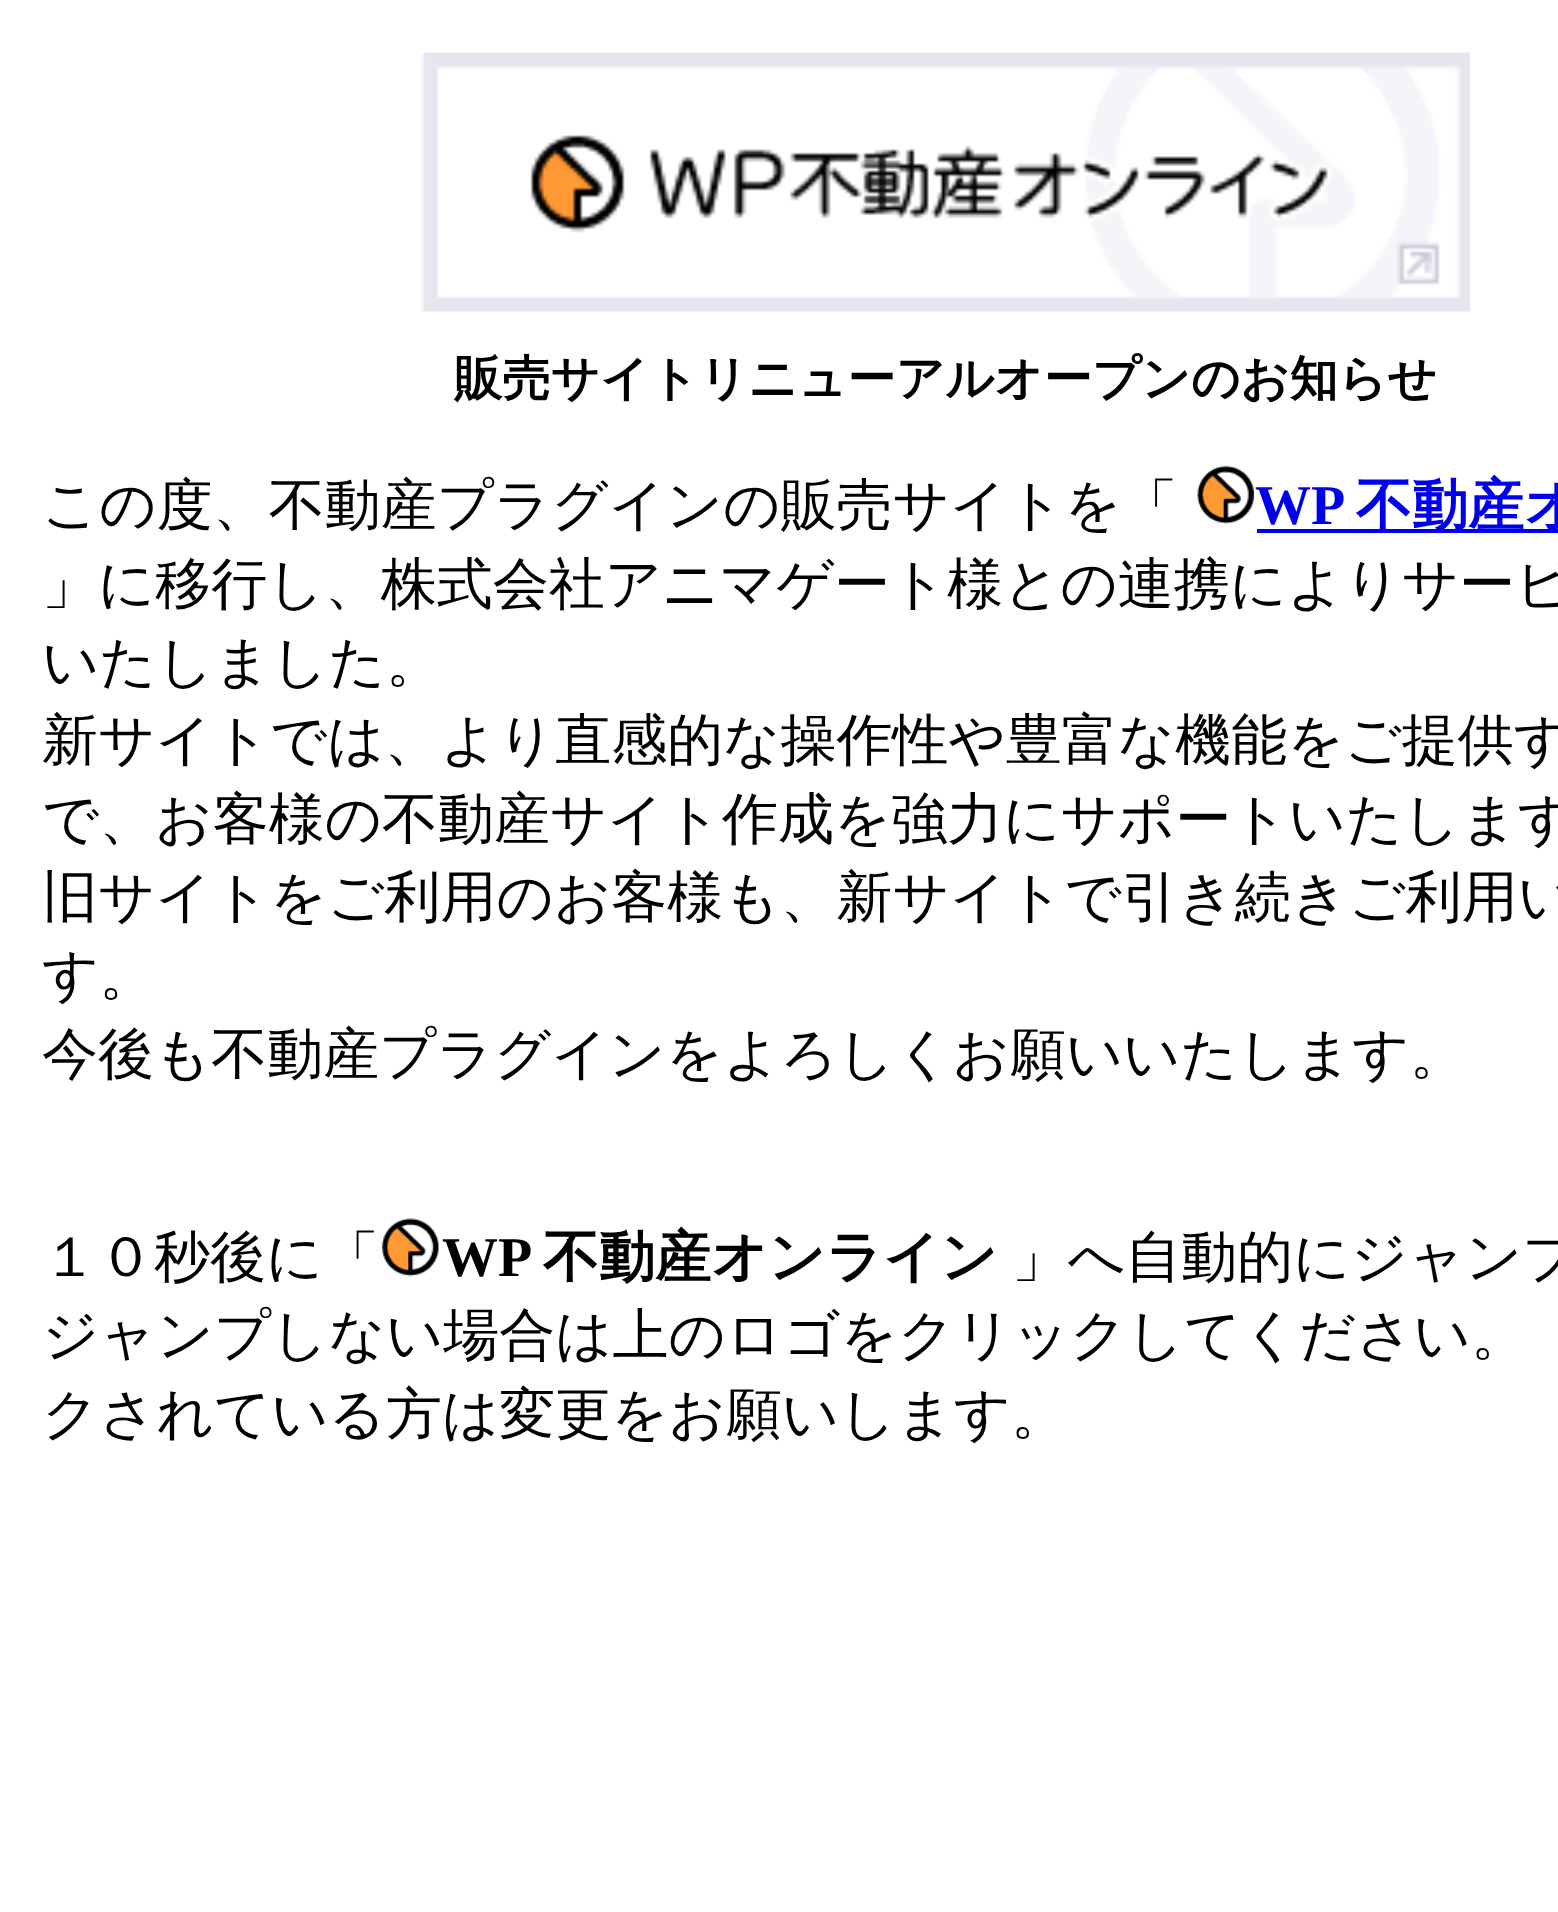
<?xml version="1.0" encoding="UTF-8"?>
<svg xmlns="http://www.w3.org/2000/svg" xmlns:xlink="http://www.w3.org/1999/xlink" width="1558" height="1912">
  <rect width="100%" height="100%" fill="#ffffff" />
  <image x="420" y="52" width="1050" height="260" xlink:href="image1.png" />
  <image x="1197" y="465" width="58" height="59" xlink:href="image2.png" />
  <rect x="1257" y="529" width="301" height="4" fill="#0000ee" />
  <image x="381" y="1218" width="58" height="59" xlink:href="image3.png" />
  <text x="454" y="395" style="font-family: WenQuanYi Zen Hei; font-size: 48.3px; font-weight: bold; fill: #000000">販売サイトリニューアルオープンのお知らせ</text>
  <text x="42" y="524" style="font-family: WenQuanYi Zen Hei; font-size: 56px; font-weight: 500; fill: #000000">この度、不動産プラグインの販売サイトを「</text>
  <text x="1255" y="524" style="font-family: Liberation Serif; font-size: 56px; font-weight: bold; fill: #0000ee">WP</text>
  <text x="1356" y="524" style="font-family: WenQuanYi Zen Hei; font-size: 56px; font-weight: bold; fill: #0000ee">不動産オ</text>
  <text x="42" y="603" style="font-family: WenQuanYi Zen Hei; font-size: 56px; font-weight: 500; fill: #000000">」に移行し、株式会社アニマゲート様との連携によりサービ</text>
  <text x="42" y="681" style="font-family: WenQuanYi Zen Hei; font-size: 56px; font-weight: 500; fill: #000000">いたしました。</text>
  <text x="42" y="759" style="font-family: WenQuanYi Zen Hei; font-size: 56px; font-weight: 500; fill: #000000">新サイトでは、より直感的な操作性や豊富な機能をご提供す</text>
  <text x="42" y="838" style="font-family: WenQuanYi Zen Hei; font-size: 56px; font-weight: 500; fill: #000000">で、お客様の不動産サイト作成を強力にサポートいたします</text>
  <text x="42" y="916" style="font-family: WenQuanYi Zen Hei; font-size: 56px; font-weight: 500; fill: #000000">旧サイトをご利用のお客様も、新サイトで引き続きご利用い</text>
  <text x="42" y="994" style="font-family: WenQuanYi Zen Hei; font-size: 56px; font-weight: 500; fill: #000000">す。</text>
  <text x="42" y="1073" style="font-family: WenQuanYi Zen Hei; font-size: 56px; font-weight: 500; fill: #000000">今後も不動産プラグインをよろしくお願いいたします。</text>
  <text x="42" y="1276" style="font-family: WenQuanYi Zen Hei; font-size: 56px; font-weight: 500; fill: #000000">１０秒後に「</text>
  <text x="442" y="1276" style="font-family: Liberation Serif; font-size: 56px; font-weight: bold; fill: #000000">WP</text>
  <text x="543" y="1276" style="font-family: WenQuanYi Zen Hei; font-size: 56px; font-weight: bold; fill: #000000">不動産オンライン</text>
  <text x="1012" y="1276" style="font-family: WenQuanYi Zen Hei; font-size: 56px; font-weight: 500; fill: #000000">」へ自動的にジャンプ</text>
  <text x="42" y="1354" word-spacing="-3" style="font-family: WenQuanYi Zen Hei; font-size: 56px; font-weight: 500; fill: #000000">ジャンプしない場合は上のロゴをクリックしてください。</text>
  <text x="42" y="1433" style="font-family: WenQuanYi Zen Hei; font-size: 56px; font-weight: 500; fill: #000000">クされている方は変更をお願いします。</text>
</svg>
